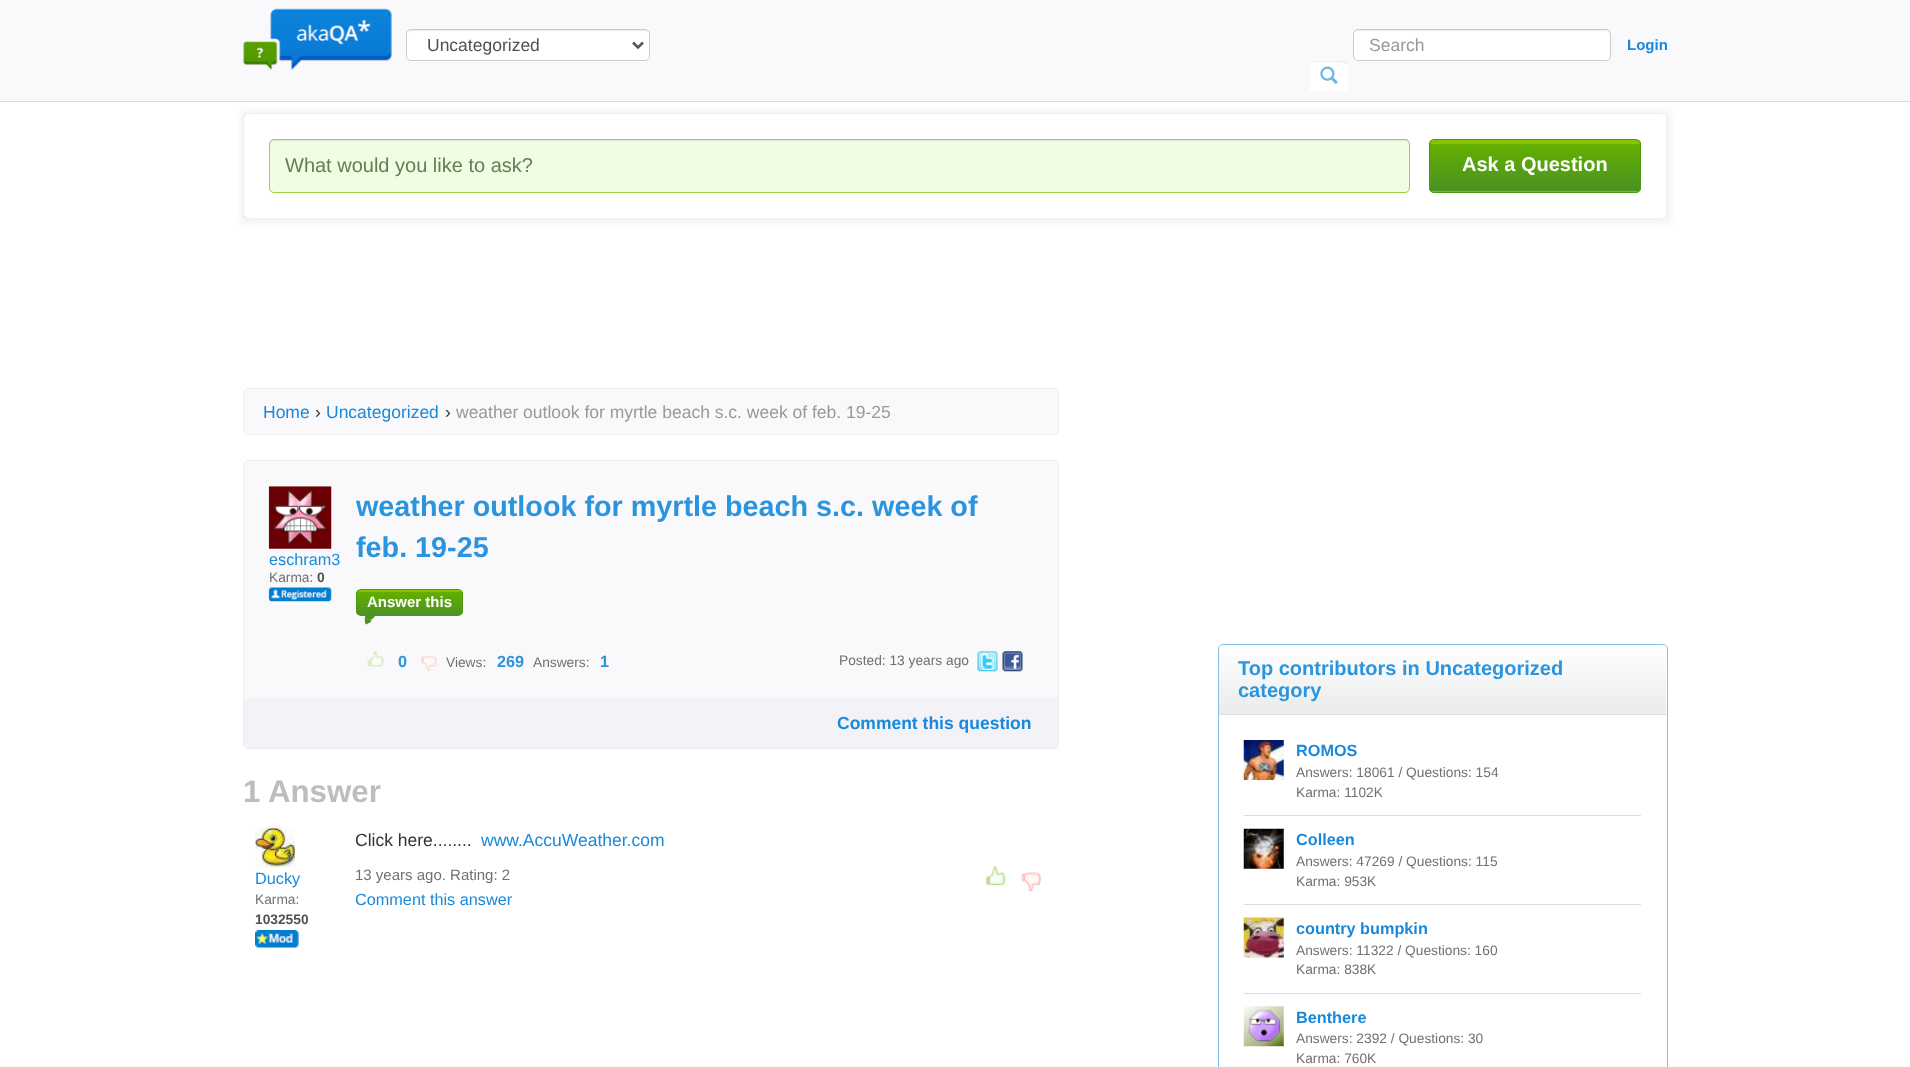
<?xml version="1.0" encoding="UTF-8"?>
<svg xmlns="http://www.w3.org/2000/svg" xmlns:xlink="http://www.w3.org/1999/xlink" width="1910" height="1067">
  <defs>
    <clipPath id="clip1"><path d="M 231 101 h 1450 v 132 h -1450 z m 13 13 h 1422 v 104 h -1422 z" clip-rule="evenodd" /></clipPath>
    <clipPath id="clip2"><rect x="1429" y="139" width="212" height="54" rx="5" /></clipPath>
    <linearGradient id="g1" gradientUnits="userSpaceOnUse" x1="1535" y1="140" x2="1535" y2="191"><stop offset="0.07" stop-color="#84c300" /><stop offset="0.09" stop-color="#63af00" /><stop offset="1" stop-color="#4b9224" /></linearGradient>
    <linearGradient id="g2" gradientUnits="userSpaceOnUse" x1="1535" y1="191" x2="1535" y2="243"><stop offset="0.07" stop-color="#84c300" /><stop offset="0.09" stop-color="#63af00" /><stop offset="1" stop-color="#4b9224" /></linearGradient>
    <clipPath id="clip3"><rect x="356" y="589" width="107" height="27" rx="5" /></clipPath>
    <linearGradient id="g3" gradientUnits="userSpaceOnUse" x1="409" y1="590" x2="409" y2="615"><stop offset="0.07" stop-color="#84c300" /><stop offset="0.09" stop-color="#63af00" /><stop offset="1" stop-color="#4b9224" /></linearGradient>
    <linearGradient id="g4" gradientUnits="userSpaceOnUse" x1="1443" y1="645" x2="1443" y2="714"><stop offset="0" stop-color="#ffffff" /><stop offset="1" stop-color="#e9ecea" /></linearGradient>
  </defs>
  <rect width="100%" height="100%" fill="#ffffff" />
  <rect width="1910" height="101" fill="#f9f8fb" />
  <rect x="243" y="114" width="1425" height="106" rx="5" fill="#000000" fill-opacity="0.05" filter="blur(0.5px)" />
  <rect x="243.5" y="113.5" width="1424" height="105" rx="4.5" fill="#ffffff" stroke="#dddddd" />
  <g clip-path="url(#clip1)">
    <rect x="241" y="111" width="1430" height="112" fill="#f2f2f2" filter="blur(3px)" />
  </g>
  <rect y="101" width="1910" height="1" fill="#d8dcdf" />
  <image x="243" y="8" width="149" height="62" xlink:href="image1.png" />
  <rect x="406" y="29" width="244" height="32" rx="5" fill="#ffffff" />
  <path d="M 411 31 h 234 c 2 0 4 2 4 4 c 0 -3 -1 -5 -4 -5 h -233 c -3 0 -4 2 -4 5 c 0 -2 1 -4 3 -4 z" fill="#ececec" />
  <rect x="406.5" y="29.5" width="243" height="31" rx="4.5" fill="none" stroke="#cccccc" />
  <path d="M 633 42.5 l 5 5 l 5 -5" fill="none" stroke="#555555" stroke-width="2.5" />
  <rect x="1353" y="29" width="258" height="32" rx="5" fill="#ffffff" />
  <path d="M 1358 31 h 249 l 2 2 l 1 2 v -1 c 0 -2 -2 -4 -4 -4 h -248 c -2 0 -4 2 -4 4 v 1 c 0 -2 1 -4 4 -4 z" fill="#ececec" />
  <rect x="1353.5" y="29.5" width="257" height="31" rx="4.5" fill="none" stroke="#c9cdd0" />
  <path d="M 1310 61 h 33 c 3 0 5 2 5 5 v 20 c 0 3 -2 5 -5 5 h -33 z" fill="#ffffff" />
  <path d="M 1310 62 h 27 c 8.5 0 10.5 1.5 11 5.5 v -1.5 c 0 -3 -2 -5 -5 -5 h -33 z" fill="#000000" fill-opacity="0.07" />
  <image x="1320" y="66" width="18" height="18" xlink:href="image2.png" />
  <rect x="269" y="139" width="1141" height="54" rx="5" fill="#f0fce3" />
  <path d="M 274 141 h 1131 c 2 0 4 2 4 4 c 0 -3 -1 -5 -4 -5 h -1131 c -3 0 -4 2 -4 5 c 0 -2 2 -4 4 -4 z" fill="#dee9d2" />
  <rect x="269.5" y="139.5" width="1140" height="53" rx="4.5" fill="none" stroke="#99d243" />
  <g clip-path="url(#clip2)">
    <rect x="1429" y="140" width="212" height="51" fill="url(#g1)" />
    <rect x="1429" y="191" width="212" height="2" fill="url(#g2)" />
  </g>
  <rect x="1429.5" y="139.5" width="211" height="53" rx="4.5" fill="none" stroke="#4d9814" />
  <rect x="243.5" y="388.5" width="815" height="46" rx="4.5" fill="#f9f8fb" stroke="#eceeef" />
  <rect x="243.5" y="460.5" width="815" height="288" rx="4.5" fill="#f9f8fb" stroke="#eceeef" />
  <image x="268" y="486" width="64" height="63" xlink:href="image3.png" />
  <image x="268" y="587" width="64" height="15" xlink:href="image4.png" />
  <g clip-path="url(#clip3)">
    <rect x="356" y="590" width="107" height="25" fill="url(#g3)" />
  </g>
  <rect x="356.5" y="589.5" width="106" height="26" rx="4.5" fill="none" stroke="#4d9814" />
  <path d="M 367.5 614 c 2 0 7.5 -0.5 9 0.5 l -4.5 5 h -5.5 l -1 -4.5 c 0 -0.5 1 -1 2 -1 z" fill="#4c9321" />
  <path d="M 365.5 615 l 1 4.5 h 4.5 v 2.5 l -5 2.5 c -1.5 -1 -1.5 -7.5 -0.5 -9.5 z" fill="#4c9321" />
  <path d="M 369 617.5 c 1 0 1.5 0.5 1.5 1 l -1 1.5 h -1.5 l -1 -1.5 c 0.5 -0.5 1 -1 2 -1 z" fill="#4b9224" />
  <path d="M 367 618.5 l 1 1.5 h 1 v 1 l -1.5 1 c -1.5 -1 -1.5 -2.5 -0.5 -3.5 z" fill="#4b9224" />
  <image x="367" y="651" width="17" height="16" xlink:href="image5.png" />
  <image x="421" y="656" width="16" height="16" xlink:href="image6.png" />
  <image x="977" y="651" width="21" height="21" xlink:href="image7.png" />
  <image x="1002" y="651" width="21" height="21" xlink:href="image8.png" />
  <rect x="244" y="698" width="814" height="50" fill="#f3f2f7" />
  <image x="255" y="827" width="40" height="41" xlink:href="image9.png" />
  <image x="255" y="930" width="44" height="18" xlink:href="image10.png" />
  <image x="986" y="866" width="20" height="20" xlink:href="image11.png" />
  <image x="1021" y="872" width="21" height="20" xlink:href="image12.png" />
  <rect x="1218.5" y="644.5" width="449" height="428" rx="4.5" fill="none" stroke="#82c0ec" />
  <path d="M 1223 645 h 439 c 2 0 4 2 4 4 v 65 h -447 v -65 c 0 -2 2 -4 4 -4 z" fill="url(#g4)" />
  <rect x="1219" y="714" width="447" height="1" fill="#dddddd" />
  <rect x="1244" y="815" width="397" height="1" fill="#dddddd" />
  <image x="1243" y="740" width="41" height="40" xlink:href="image13.png" />
  <rect x="1244" y="904" width="397" height="1" fill="#dddddd" />
  <image x="1243" y="828" width="41" height="41" xlink:href="image14.png" />
  <rect x="1244" y="993" width="397" height="1" fill="#dddddd" />
  <image x="1243" y="917" width="41" height="41" xlink:href="image15.png" />
  <image x="1243" y="1006" width="41" height="41" xlink:href="image16.png" />
  <text x="427" y="51" style="font-family: Liberation Sans; font-size: 17.5px; fill: #515151">Uncategorized</text>
  <text x="1369" y="51" style="font-family: Liberation Sans; font-size: 17.5px; fill: #999999">Search</text>
  <text x="1627" y="50" style="font-family: Liberation Sans; font-size: 15px; font-weight: bold; fill: #1889db">Login</text>
  <text x="285" y="172" style="font-family: Liberation Sans; font-size: 20px; fill: #608053">What would you like to ask?</text>
  <text x="1462" y="171" style="font-family: Liberation Sans; font-size: 20px; font-weight: bold; fill: #ffffff">Ask a Question</text>
  <text x="263" y="418" style="font-family: Liberation Sans; font-size: 17.5px; fill: #1889db">Home</text>
  <text x="315" y="418" style="font-family: Liberation Sans; font-size: 17.5px; fill: #333333">›</text>
  <text x="326" y="418" style="font-family: Liberation Sans; font-size: 17.5px; fill: #1889db">Uncategorized</text>
  <text x="445" y="418" style="font-family: Liberation Sans; font-size: 17.5px; fill: #333333">›</text>
  <text x="456" y="418" style="font-family: Liberation Sans; font-size: 17.5px; fill: #999999">weather outlook for myrtle beach s.c. week of feb. 19-25</text>
  <text x="269" y="565" style="font-family: Liberation Sans; font-size: 16.25px; fill: #1889db">eschram3</text>
  <text x="269" y="582" style="font-family: Liberation Sans; font-size: 13.75px; fill: #717171">Karma:</text>
  <text x="317" y="582" style="font-family: Liberation Sans; font-size: 13.75px; font-weight: bold; fill: #515151">0</text>
  <text x="356" y="516" style="font-family: Liberation Sans; font-size: 28.75px; font-weight: bold; fill: #2a94de">weather outlook for myrtle beach s.c. week of</text>
  <text x="356" y="557" style="font-family: Liberation Sans; font-size: 28.75px; font-weight: bold; fill: #2a94de">feb. 19-25</text>
  <text x="367" y="607" style="font-family: Liberation Sans; font-size: 15px; font-weight: bold; fill: #ffffff">Answer this</text>
  <text x="398" y="667" style="font-family: Liberation Sans; font-size: 16.25px; font-weight: bold; fill: #2a94de">0</text>
  <text x="446" y="667" style="font-family: Liberation Sans; font-size: 13.75px; fill: #717171">Views:</text>
  <text x="497" y="667" style="font-family: Liberation Sans; font-size: 16.25px; font-weight: bold; fill: #2a94de">269</text>
  <text x="533" y="667" style="font-family: Liberation Sans; font-size: 13.75px; fill: #717171">Answers:</text>
  <text x="600" y="667" style="font-family: Liberation Sans; font-size: 16.25px; font-weight: bold; fill: #2a94de">1</text>
  <text x="839" y="665" style="font-family: Liberation Sans; font-size: 13.75px; fill: #717171">Posted: 13 years ago</text>
  <text x="837" y="729" style="font-family: Liberation Sans; font-size: 17.5px; font-weight: bold; fill: #1889db">Comment this question</text>
  <text x="243" y="802" style="font-family: Liberation Sans; font-size: 31.25px; font-weight: bold; fill: #bdbdbd">1 Answer</text>
  <text x="255" y="884" style="font-family: Liberation Sans; font-size: 16.25px; fill: #1889db">Ducky</text>
  <text x="255" y="904" style="font-family: Liberation Sans; font-size: 13.75px; fill: #717171">Karma:</text>
  <text x="255" y="924" style="font-family: Liberation Sans; font-size: 13.75px; font-weight: bold; fill: #515151">1032550</text>
  <text x="355" y="846" style="font-family: Liberation Sans; font-size: 17.5px; fill: #333333">Click here........</text>
  <text x="481" y="846" style="font-family: Liberation Sans; font-size: 17.5px; fill: #1889db">www.AccuWeather.com</text>
  <text x="355" y="880" style="font-family: Liberation Sans; font-size: 15px; fill: #717171">13 years ago. Rating: 2</text>
  <text x="355" y="905" style="font-family: Liberation Sans; font-size: 16.25px; fill: #1889db">Comment this answer</text>
  <text x="1238" y="675" style="font-family: Liberation Sans; font-size: 20px; font-weight: bold; fill: #2a94de">Top contributors in Uncategorized</text>
  <text x="1238" y="697" style="font-family: Liberation Sans; font-size: 20px; font-weight: bold; fill: #2a94de">category</text>
  <text x="1296" y="756" style="font-family: Liberation Sans; font-size: 16.25px; font-weight: bold; fill: #1889db">ROMOS</text>
  <text x="1296" y="777" style="font-family: Liberation Sans; font-size: 13.75px; fill: #717171">Answers: 18061 / Questions: 154</text>
  <text x="1296" y="797" style="font-family: Liberation Sans; font-size: 13.75px; fill: #717171">Karma: 1102K</text>
  <text x="1296" y="845" style="font-family: Liberation Sans; font-size: 16.25px; font-weight: bold; fill: #1889db">Colleen</text>
  <text x="1296" y="866" style="font-family: Liberation Sans; font-size: 13.75px; fill: #717171">Answers: 47269 / Questions: 115</text>
  <text x="1296" y="886" style="font-family: Liberation Sans; font-size: 13.75px; fill: #717171">Karma: 953K</text>
  <text x="1296" y="934" style="font-family: Liberation Sans; font-size: 16.25px; font-weight: bold; fill: #1889db">country bumpkin</text>
  <text x="1296" y="955" style="font-family: Liberation Sans; font-size: 13.75px; fill: #717171">Answers: 11322 / Questions: 160</text>
  <text x="1296" y="974" style="font-family: Liberation Sans; font-size: 13.75px; fill: #717171">Karma: 838K</text>
  <text x="1296" y="1023" style="font-family: Liberation Sans; font-size: 16.25px; font-weight: bold; fill: #1889db">Benthere</text>
  <text x="1296" y="1043" style="font-family: Liberation Sans; font-size: 13.75px; fill: #717171">Answers: 2392 / Questions: 30</text>
  <text x="1296" y="1063" style="font-family: Liberation Sans; font-size: 13.75px; fill: #717171">Karma: 760K</text>
</svg>
